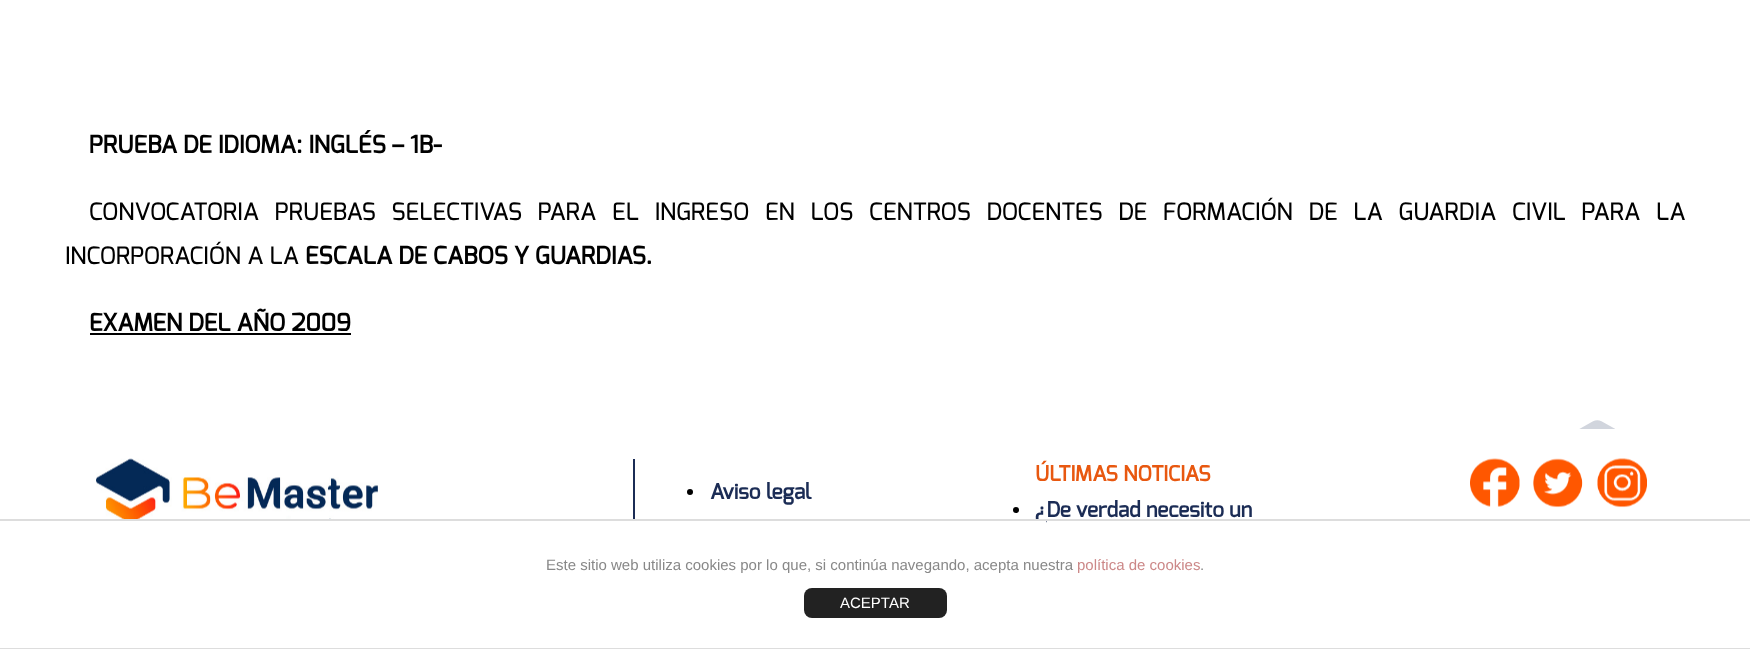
<?xml version="1.0" encoding="UTF-8"?>
<svg xmlns="http://www.w3.org/2000/svg" xmlns:xlink="http://www.w3.org/1999/xlink" width="1750" height="649">
  <rect width="100%" height="100%" fill="#ffffff" />
  <image x="1579" y="420" width="36" height="9" xlink:href="image1.png" />
  <rect x="90" y="333" width="261" height="2" fill="#000000" />
  <rect x="633" y="459" width="2" height="60" fill="#1b2c55" />
  <image x="96" y="458" width="282" height="61" xlink:href="image2.png" />
  <circle cx="690" cy="492" r="3" fill="#000000" />
  <circle cx="1016" cy="510" r="3" fill="#000000" />
  <image x="1470" y="458" width="50" height="49" xlink:href="image3.png" />
  <image x="1533" y="458" width="50" height="50" xlink:href="image4.png" />
  <image x="1597" y="458" width="50" height="50" xlink:href="image5.png" />
  <rect y="648" width="1750" height="1" fill="#dddddd" />
  <rect x="804" y="588" width="143" height="30" rx="8" fill="#222222" />
  <text x="89" y="153" style="font-family: Exo; font-size: 24px; font-weight: bold; fill: #000000">PRUEBA DE IDIOMA: INGLÉS – 1B-</text>
  <text x="89" y="220" word-spacing="9.75" style="font-family: Exo; font-size: 24px; font-weight: 500; fill: #000000">CONVOCATORIA PRUEBAS SELECTIVAS PARA EL INGRESO EN LOS CENTROS DOCENTES DE FORMACIÓN DE LA GUARDIA CIVIL PARA LA</text>
  <text x="65" y="264" style="font-family: Exo; font-size: 24px; font-weight: 500; fill: #000000">INCORPORACIÓN A LA</text>
  <text x="305" y="264" style="font-family: Exo; font-size: 24px; font-weight: bold; fill: #000000">ESCALA DE CABOS Y GUARDIAS.</text>
  <text x="89" y="331" style="font-family: Exo; font-size: 24px; font-weight: bold; fill: #000000">EXAMEN DEL AÑO 2009</text>
  <text x="710" y="499" style="font-family: Exo; font-size: 21px; font-weight: bold; fill: #1b2c55">Aviso legal</text>
  <text x="1035" y="481" style="font-family: Exo; font-size: 21px; font-weight: bold; fill: #e85810">ÚLTIMAS NOTICIAS</text>
  <text x="1035" y="517" style="font-family: Exo; font-size: 21px; font-weight: bold; fill: #1b2c55">¿De verdad necesito un</text>
  <rect x="1036" y="521" width="10" height="2" fill="#ffffff" />
  <rect y="519" width="1750" height="2" fill="#dddddd" />
  <text x="546" y="570" style="font-family: Liberation Sans; font-size: 15px; fill: #888888">Este sitio web utiliza cookies por lo que, si continúa navegando, acepta nuestra</text>
  <text x="1077" y="570" style="font-family: Liberation Sans; font-size: 15px; fill: #cc8888">política de cookies</text>
  <text x="1200" y="570" style="font-family: Liberation Sans; font-size: 15px; fill: #888888">.</text>
  <text x="840" y="608" style="font-family: Liberation Sans; font-size: 15px; fill: #ffffff">ACEPTAR</text>
</svg>
